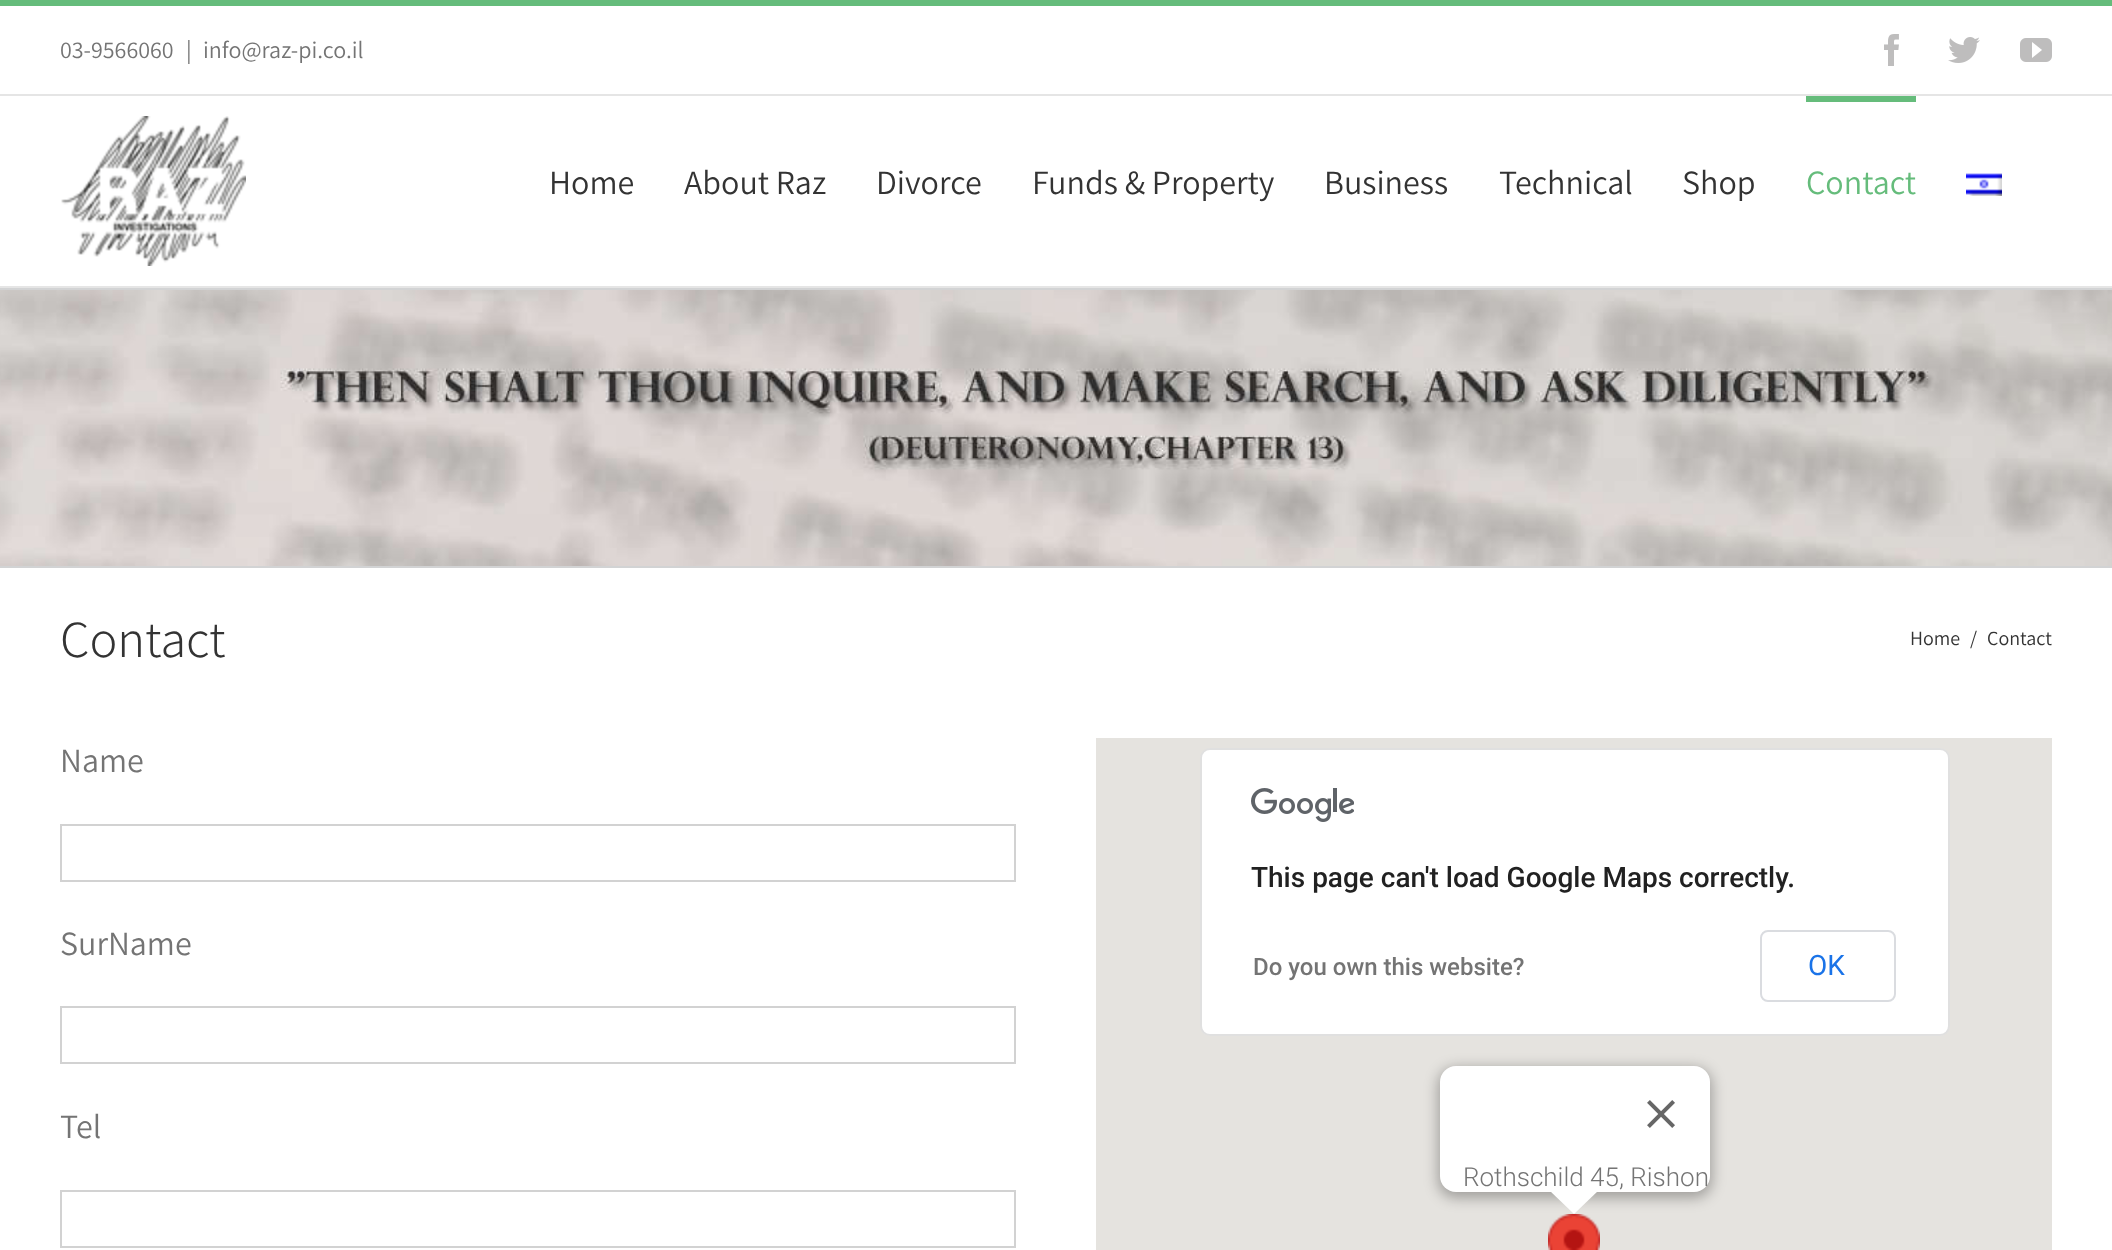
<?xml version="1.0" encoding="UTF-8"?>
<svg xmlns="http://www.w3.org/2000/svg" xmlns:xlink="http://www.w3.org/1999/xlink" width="2112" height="1250">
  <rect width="100%" height="100%" fill="#ffffff" />
  <rect width="2112" height="6" fill="#65bc7b" />
  <rect y="94" width="2112" height="2" fill="#e5e5e5" />
  <image x="1884" y="34" width="15" height="32" xlink:href="image1.png" />
  <image x="1948" y="37" width="32" height="26" xlink:href="image2.png" />
  <image x="2020" y="38" width="32" height="24" xlink:href="image3.png" />
  <rect y="286" width="2112" height="2" fill="#e5e5e5" />
  <image x="61" y="116" width="185" height="150" xlink:href="image4.png" />
  <rect x="1806" y="96" width="110" height="6" fill="#65bc7b" />
  <image x="1966" y="173" width="36" height="23" xlink:href="image5.png" />
  <rect y="288" width="2112" height="2" fill="#d2d3d4" />
  <rect y="566" width="2112" height="2" fill="#d2d3d4" />
  <image x="0" y="290" width="2112" height="276" xlink:href="image6.png" />
  <rect x="61" y="825" width="954" height="56" fill="none" stroke="#d2d2d2" stroke-width="2" />
  <rect x="61" y="1007" width="954" height="56" fill="none" stroke="#d2d2d2" stroke-width="2" />
  <rect x="61" y="1191" width="954" height="56" fill="none" stroke="#d2d2d2" stroke-width="2" />
  <rect x="1096" y="738" width="956" height="512" fill="#e5e3df" />
  <rect x="1200" y="748" width="750" height="288" rx="10" fill="#ffffff" />
  <rect x="1201" y="749" width="748" height="286" rx="9" fill="none" stroke="#000000" stroke-opacity="0.12" stroke-width="2" />
  <image x="1251" y="788" width="103" height="34" xlink:href="image7.png" />
  <rect x="1761" y="931" width="134" height="70" rx="7" fill="none" stroke="#dadce0" stroke-width="2" />
  <image x="1548" y="1214" width="52" height="36" xlink:href="image9.png" />
  <rect x="1438" y="1068" width="274" height="130" rx="18" fill="#000000" fill-opacity="0.3" filter="blur(7px)" />
  <rect x="1440" y="1066" width="270" height="126" rx="16" fill="#ffffff" />
  <image x="1647" y="1100" width="28" height="28" xlink:href="image8.png" />
  <path d="M 1550 1190 v 1 l 24 23 l 25 -24 z" fill="#ffffff" />
  <text x="60" y="58" style="font-family: 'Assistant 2'; font-size: 24px; font-weight: 200; fill: #747474">03-9566060</text>
  <text x="186" y="58" style="font-family: 'Assistant 2'; font-size: 24px; font-weight: 200; fill: #747474">|</text>
  <text x="203" y="58" style="font-family: 'Assistant 2'; font-size: 24px; font-weight: 200; fill: #747474">info@raz-pi.co.il</text>
  <text x="549" y="194" style="font-family: 'Assistant 2'; font-size: 34px; font-weight: 200; fill: #333333">Home</text>
  <text x="684" y="194" style="font-family: 'Assistant 2'; font-size: 34px; font-weight: 200; fill: #333333">About Raz</text>
  <text x="876" y="194" style="font-family: 'Assistant 2'; font-size: 34px; font-weight: 200; fill: #333333">Divorce</text>
  <text x="1032" y="194" style="font-family: 'Assistant 2'; font-size: 34px; font-weight: 200; fill: #333333">Funds &amp; Property</text>
  <text x="1324" y="194" style="font-family: 'Assistant 2'; font-size: 34px; font-weight: 200; fill: #333333">Business</text>
  <text x="1499" y="194" style="font-family: 'Assistant 2'; font-size: 34px; font-weight: 200; fill: #333333">Technical</text>
  <text x="1682" y="194" style="font-family: 'Assistant 2'; font-size: 34px; font-weight: 200; fill: #333333">Shop</text>
  <text x="1806" y="194" style="font-family: 'Assistant 2'; font-size: 34px; font-weight: 200; fill: #65bc7b">Contact</text>
  <text x="60" y="657" style="font-family: Assistant; font-size: 52px; font-weight: 200; fill: #333333">Contact</text>
  <text x="1910" y="645" style="font-family: 'Assistant 2'; font-size: 20px; font-weight: 200; fill: #333333">Home</text>
  <text x="1970" y="645" style="font-family: 'Assistant 2'; font-size: 20px; font-weight: 200; fill: #333333">/</text>
  <text x="1987" y="645" style="font-family: 'Assistant 2'; font-size: 20px; font-weight: 200; fill: #333333">Contact</text>
  <text x="60" y="772" style="font-family: 'Assistant 2'; font-size: 34px; font-weight: 200; fill: #747474">Name</text>
  <text x="60" y="955" style="font-family: 'Assistant 2'; font-size: 34px; font-weight: 200; fill: #747474">SurName</text>
  <text x="60" y="1138" style="font-family: 'Assistant 2'; font-size: 34px; font-weight: 200; fill: #747474">Tel</text>
  <text x="1251" y="887" style="font-family: Roboto; font-size: 28px; font-weight: 500; fill: #212121">This page can't load Google Maps correctly.</text>
  <text x="1253" y="975" style="font-family: Roboto; font-size: 24px; font-weight: 500; fill: #747474">Do you own this website?</text>
  <text x="1808" y="975" style="font-family: Roboto; font-size: 28px; fill: #1a73e8">OK</text>
  <text x="1463" y="1186" style="font-family: Roboto; font-size: 26px; font-weight: 300; fill: #747474">Rothschild 45, Rishon</text>
</svg>
